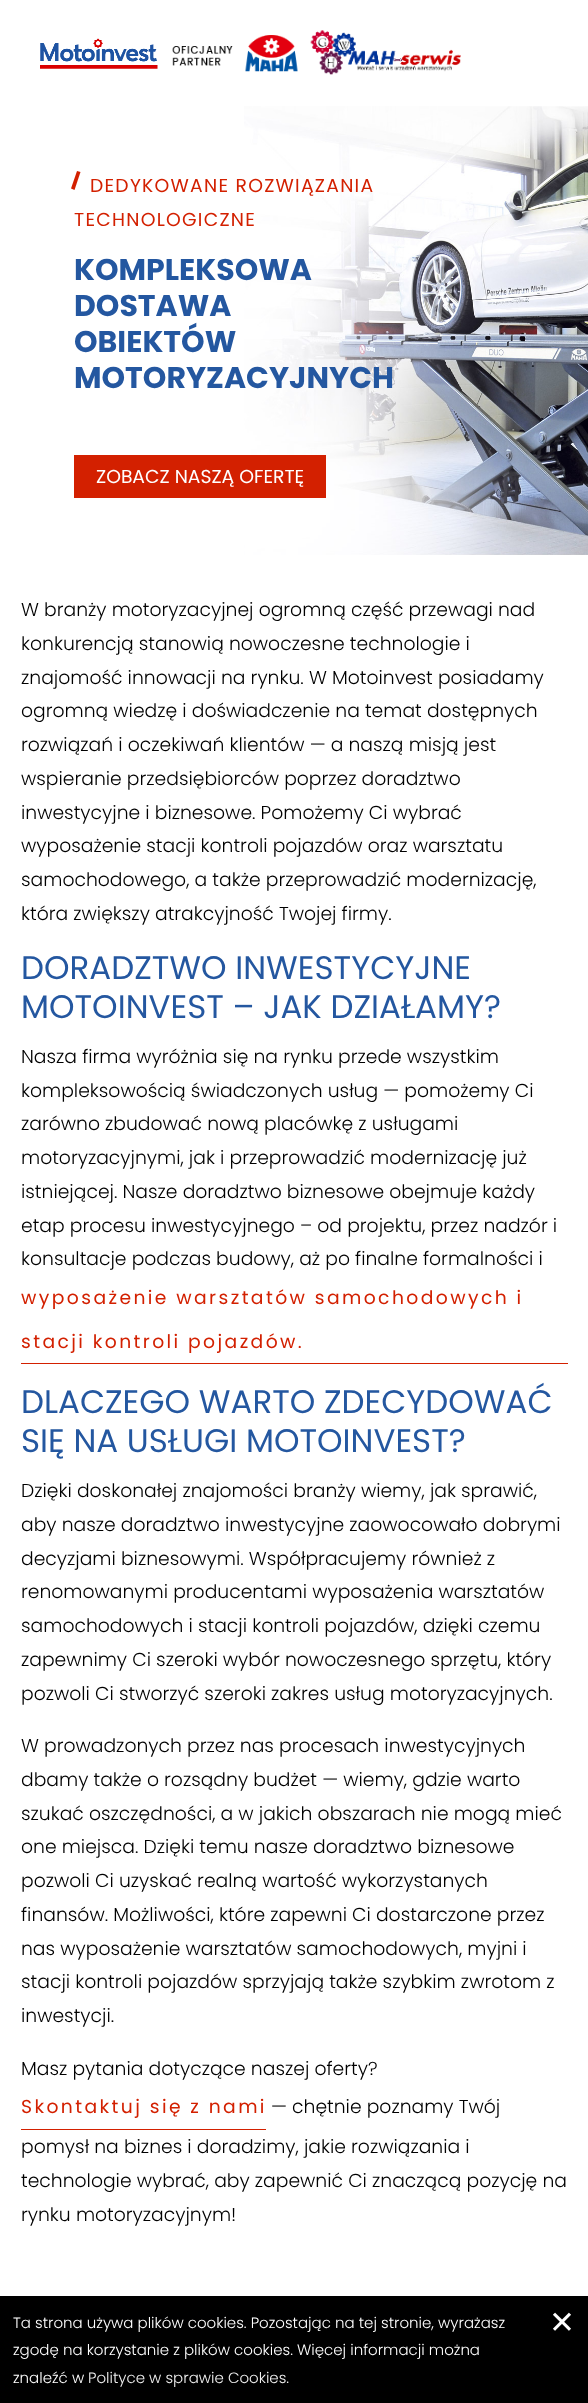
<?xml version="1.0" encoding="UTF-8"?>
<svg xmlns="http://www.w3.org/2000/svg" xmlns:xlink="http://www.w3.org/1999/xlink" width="588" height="2403">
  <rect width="100%" height="100%" fill="#ffffff" />
  <image x="40" y="38" width="118" height="31" xlink:href="image1.png" />
  <image x="172" y="35" width="126" height="37" xlink:href="image2.png" />
  <image x="310" y="30" width="151" height="45" xlink:href="image3.png" />
  <image x="244" y="106" width="344" height="449" xlink:href="image4.png" />
  <path d="M 77 171 l 3.5 1 l -6 18 l -3.5 -1.5 z" fill="#d32000" />
  <rect x="74" y="455" width="252" height="43" fill="#d32000" />
  <rect x="21" y="1363" width="547" height="1" fill="#d32000" />
  <rect x="21" y="2129" width="245" height="1" fill="#d32000" />
  <rect y="2296" width="588" height="107" fill="#000000" />
  <text x="90" y="192" style="font-family: Poppins; font-size: 18.75px; letter-spacing: 1.25px; fill: #d32000">DEDYKOWANE ROZWIĄZANIA</text>
  <text x="74" y="226" style="font-family: Poppins; font-size: 18.75px; letter-spacing: 1.25px; fill: #d32000">TECHNOLOGICZNE</text>
  <text x="74" y="280" style="font-family: Poppins; font-size: 30px; font-weight: bold; fill: #2457a0">KOMPLEKSOWA</text>
  <text x="74" y="316" style="font-family: Poppins; font-size: 30px; font-weight: bold; fill: #2457a0">DOSTAWA</text>
  <text x="74" y="352" style="font-family: Poppins; font-size: 30px; font-weight: bold; fill: #2457a0">OBIEKTÓW</text>
  <text x="74" y="388" style="font-family: Poppins; font-size: 30px; font-weight: bold; fill: #2457a0">MOTORYZACYJNYCH</text>
  <text x="96" y="483" style="font-family: Poppins; font-size: 18.75px; fill: #ffffff">ZOBACZ NASZĄ OFERTĘ</text>
  <text x="21" y="616" style="font-family: Poppins; font-size: 18.75px; font-weight: 300; fill: #000000">W branży motoryzacyjnej ogromną część przewagi nad</text>
  <text x="21" y="650" style="font-family: Poppins; font-size: 18.75px; font-weight: 300; fill: #000000">konkurencją stanowią nowoczesne technologie i</text>
  <text x="21" y="684" style="font-family: Poppins; font-size: 18.75px; font-weight: 300; fill: #000000">znajomość innowacji na rynku. W Motoinvest posiadamy</text>
  <text x="21" y="717" style="font-family: Poppins; font-size: 18.75px; font-weight: 300; fill: #000000">ogromną wiedzę i doświadczenie na temat dostępnych</text>
  <text x="21" y="751" style="font-family: Poppins; font-size: 18.75px; font-weight: 300; fill: #000000">rozwiązań i oczekiwań klientów — a naszą misją jest</text>
  <text x="21" y="785" style="font-family: Poppins; font-size: 18.75px; font-weight: 300; fill: #000000">wspieranie przedsiębiorców poprzez doradztwo</text>
  <text x="21" y="819" style="font-family: Poppins; font-size: 18.75px; font-weight: 300; fill: #000000">inwestycyjne i biznesowe. Pomożemy Ci wybrać</text>
  <text x="21" y="852" style="font-family: Poppins; font-size: 18.75px; font-weight: 300; fill: #000000">wyposażenie stacji kontroli pojazdów oraz warsztatu</text>
  <text x="21" y="886" style="font-family: Poppins; font-size: 18.75px; font-weight: 300; fill: #000000">samochodowego, a także przeprowadzić modernizację,</text>
  <text x="21" y="920" style="font-family: Poppins; font-size: 18.75px; font-weight: 300; fill: #000000">która zwiększy atrakcyjność Twojej firmy.</text>
  <text x="21" y="979" style="font-family: Poppins; font-size: 32.5px; fill: #2457a0">DORADZTWO INWESTYCYJNE</text>
  <text x="21" y="1018" style="font-family: Poppins; font-size: 32.5px; fill: #2457a0">MOTOINVEST – JAK DZIAŁAMY?</text>
  <text x="21" y="1063" style="font-family: Poppins; font-size: 18.75px; font-weight: 300; fill: #000000">Nasza firma wyróżnia się na rynku przede wszystkim</text>
  <text x="21" y="1097" style="font-family: Poppins; font-size: 18.75px; font-weight: 300; fill: #000000">kompleksowością świadczonych usług — pomożemy Ci</text>
  <text x="21" y="1130" style="font-family: Poppins; font-size: 18.75px; font-weight: 300; fill: #000000">zarówno zbudować nową placówkę z usługami</text>
  <text x="21" y="1164" style="font-family: Poppins; font-size: 18.75px; font-weight: 300; fill: #000000">motoryzacyjnymi, jak i przeprowadzić modernizację już</text>
  <text x="21" y="1198" style="font-family: Poppins; font-size: 18.75px; font-weight: 300; fill: #000000">istniejącej. Nasze doradztwo biznesowe obejmuje każdy</text>
  <text x="21" y="1232" style="font-family: Poppins; font-size: 18.75px; font-weight: 300; fill: #000000">etap procesu inwestycyjnego – od projektu, przez nadzór i</text>
  <text x="21" y="1265" style="font-family: Poppins; font-size: 18.75px; font-weight: 300; fill: #000000">konsultacje podczas budowy, aż po finalne formalności i</text>
  <text x="21" y="1304" style="font-family: Poppins; font-size: 18.75px; letter-spacing: 2.4px; fill: #d32000">wyposażenie warsztatów samochodowych i</text>
  <text x="21" y="1348" style="font-family: Poppins; font-size: 18.75px; letter-spacing: 2.4px; fill: #d32000">stacji kontroli pojazdów.</text>
  <text x="21" y="1413" style="font-family: Poppins; font-size: 32.5px; fill: #2457a0">DLACZEGO WARTO ZDECYDOWAĆ</text>
  <text x="21" y="1452" style="font-family: Poppins; font-size: 32.5px; fill: #2457a0">SIĘ NA USŁUGI MOTOINVEST?</text>
  <text x="21" y="1497" style="font-family: Poppins; font-size: 18.75px; font-weight: 300; fill: #000000">Dzięki doskonałej znajomości branży wiemy, jak sprawić,</text>
  <text x="21" y="1531" style="font-family: Poppins; font-size: 18.75px; font-weight: 300; fill: #000000">aby nasze doradztwo inwestycyjne zaowocowało dobrymi</text>
  <text x="21" y="1565" style="font-family: Poppins; font-size: 18.75px; font-weight: 300; fill: #000000">decyzjami biznesowymi. Współpracujemy również z</text>
  <text x="21" y="1598" style="font-family: Poppins; font-size: 18.75px; font-weight: 300; fill: #000000">renomowanymi producentami wyposażenia warsztatów</text>
  <text x="21" y="1632" style="font-family: Poppins; font-size: 18.75px; font-weight: 300; fill: #000000">samochodowych i stacji kontroli pojazdów, dzięki czemu</text>
  <text x="21" y="1666" style="font-family: Poppins; font-size: 18.75px; font-weight: 300; fill: #000000">zapewnimy Ci szeroki wybór nowoczesnego sprzętu, który</text>
  <text x="21" y="1700" style="font-family: Poppins; font-size: 18.75px; font-weight: 300; fill: #000000">pozwoli Ci stworzyć szeroki zakres usług motoryzacyjnych.</text>
  <text x="21" y="1752" style="font-family: Poppins; font-size: 18.75px; font-weight: 300; fill: #000000">W prowadzonych przez nas procesach inwestycyjnych</text>
  <text x="21" y="1786" style="font-family: Poppins; font-size: 18.75px; font-weight: 300; fill: #000000">dbamy także o rozsądny budżet — wiemy, gdzie warto</text>
  <text x="21" y="1820" style="font-family: Poppins; font-size: 18.75px; font-weight: 300; fill: #000000">szukać oszczędności, a w jakich obszarach nie mogą mieć</text>
  <text x="21" y="1853" style="font-family: Poppins; font-size: 18.75px; font-weight: 300; fill: #000000">one miejsca. Dzięki temu nasze doradztwo biznesowe</text>
  <text x="21" y="1887" style="font-family: Poppins; font-size: 18.75px; font-weight: 300; fill: #000000">pozwoli Ci uzyskać realną wartość wykorzystanych</text>
  <text x="21" y="1921" style="font-family: Poppins; font-size: 18.75px; font-weight: 300; fill: #000000">finansów. Możliwości, które zapewni Ci dostarczone przez</text>
  <text x="21" y="1955" style="font-family: Poppins; font-size: 18.75px; font-weight: 300; fill: #000000">nas wyposażenie warsztatów samochodowych, myjni i</text>
  <text x="21" y="1988" style="font-family: Poppins; font-size: 18.75px; font-weight: 300; fill: #000000">stacji kontroli pojazdów sprzyjają także szybkim zwrotom z</text>
  <text x="21" y="2022" style="font-family: Poppins; font-size: 18.75px; font-weight: 300; fill: #000000">inwestycji.</text>
  <text x="21" y="2075" style="font-family: Poppins; font-size: 18.75px; font-weight: 300; fill: #000000">Masz pytania dotyczące naszej oferty?</text>
  <text x="21" y="2113" style="font-family: Poppins; font-size: 18.75px; letter-spacing: 2.4px; fill: #d32000">Skontaktuj się z nami</text>
  <text x="271" y="2113" style="font-family: Poppins; font-size: 18.75px; font-weight: 300; fill: #000000">— chętnie poznamy Twój</text>
  <text x="21" y="2153" style="font-family: Poppins; font-size: 18.75px; font-weight: 300; fill: #000000">pomysł na biznes i doradzimy, jakie rozwiązania i</text>
  <text x="21" y="2187" style="font-family: Poppins; font-size: 18.75px; font-weight: 300; fill: #000000">technologie wybrać, aby zapewnić Ci znaczącą pozycję na</text>
  <text x="21" y="2221" style="font-family: Poppins; font-size: 18.75px; font-weight: 300; fill: #000000">rynku motoryzacyjnym!</text>
  <text x="13" y="2328" style="font-family: Poppins; font-size: 15px; font-weight: 300; fill: #ffffff">Ta strona używa plików cookies. Pozostając na tej stronie, wyrażasz</text>
  <text x="549" y="2333" style="font-family: DejaVu Sans; font-size: 31px; fill: #ffffff">✕</text>
  <text x="13" y="2355" style="font-family: Poppins; font-size: 15px; font-weight: 300; fill: #ffffff">zgodę na korzystanie z plików cookies. Więcej informacji można</text>
  <text x="13" y="2383" style="font-family: Poppins; font-size: 15px; font-weight: 300; fill: #ffffff">znaleźć w</text>
  <text x="88" y="2383" style="font-family: Poppins; font-size: 15px; font-weight: 300; fill: #f1f1f1">Polityce w sprawie Cookies.</text>
</svg>
